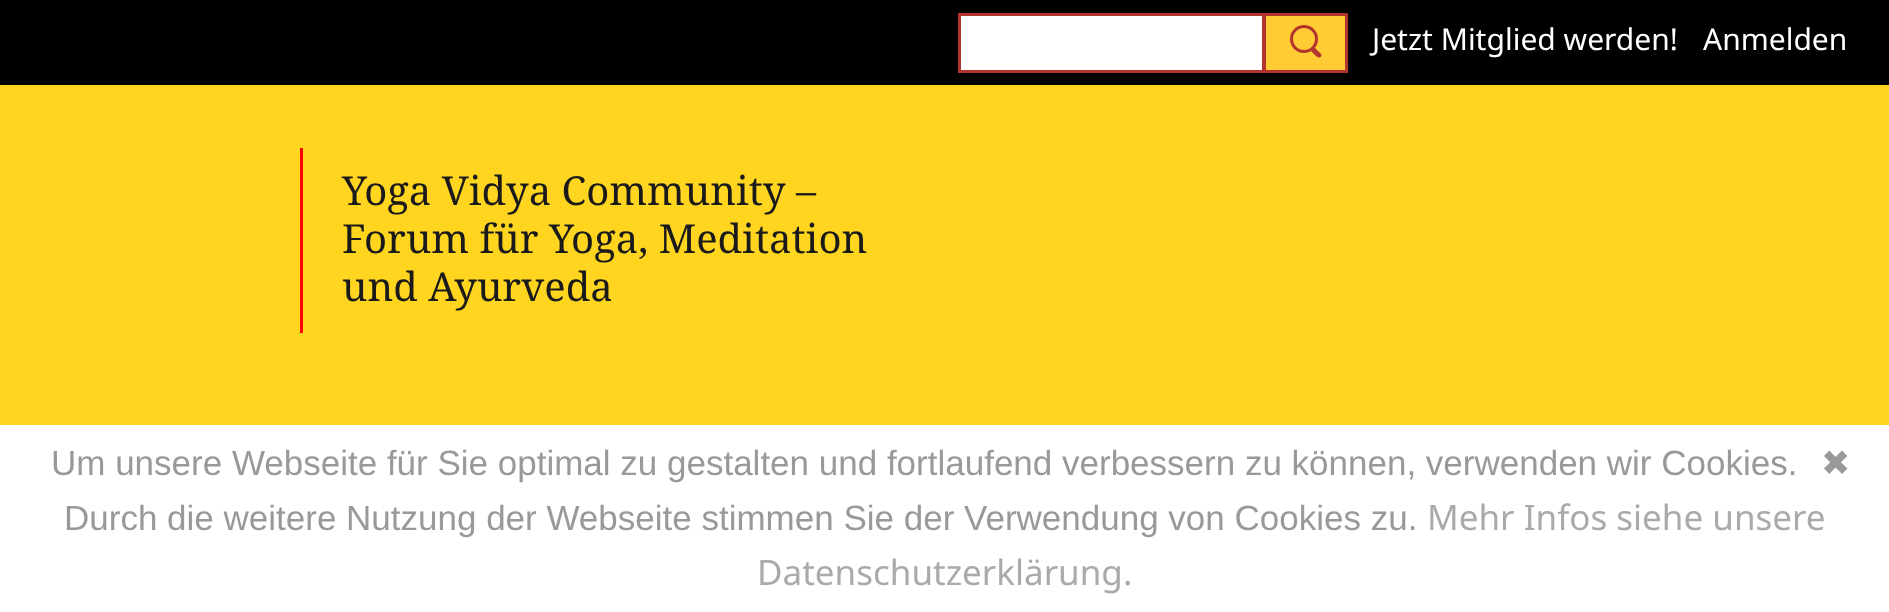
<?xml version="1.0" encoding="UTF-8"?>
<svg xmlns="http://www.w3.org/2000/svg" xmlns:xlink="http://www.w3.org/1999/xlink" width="1889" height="612">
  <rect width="100%" height="100%" fill="#ffd520" />
  <rect width="1889" height="85" fill="#000000" />
  <rect x="959.5" y="14.5" width="304" height="57" fill="#ffffff" stroke="#b3342e" stroke-width="3" />
  <rect x="1264.5" y="14.5" width="82" height="57" fill="#ffcc33" stroke="#b3342e" stroke-width="3" />
  <circle cx="1304" cy="39" r="12.5" fill="none" stroke="#b3342e" stroke-width="3" />
  <path d="M 1315 48 l 6 6 c 0.5 0.5 0.5 1.5 0 2.5 c -2 2.5 -4.5 0 -6 -1.5 l -3.5 -3.5 c -2 -2 1.5 -5.5 3.5 -3.5 z" fill="#b3342e" />
  <rect x="300" y="148" width="3" height="185" fill="#ff0000" />
  <rect y="425" width="1889" height="187" fill="#ffffff" />
  <text x="1372" y="50" style="font-family: Noto Sans; font-size: 30px; fill: #ffffff">Jetzt Mitglied werden!</text>
  <text x="1703" y="50" style="font-family: Noto Sans; font-size: 30px; fill: #ffffff">Anmelden</text>
  <text x="342" y="205" style="font-family: Noto Serif; font-size: 40px; fill: #1a1a1a">Yoga Vidya Community –</text>
  <text x="342" y="253" style="font-family: Noto Serif; font-size: 40px; fill: #1a1a1a">Forum für Yoga, Meditation</text>
  <text x="342" y="301" style="font-family: Noto Serif; font-size: 40px; fill: #1a1a1a">und Ayurveda</text>
  <text x="51" y="475" style="font-family: Liberation Sans; font-size: 35px; fill: #999999">Um unsere Webseite für Sie optimal zu gestalten und fortlaufend verbessern zu können, verwenden wir Cookies.</text>
  <text x="1821" y="475" style="font-family: DejaVu Sans; font-size: 35px; fill: #999999">✖</text>
  <text x="64" y="530" style="font-family: Liberation Sans; font-size: 35px; fill: #999999">Durch die weitere Nutzung der Webseite stimmen Sie der Verwendung von Cookies zu.</text>
  <text x="1427" y="530" style="font-family: Noto Sans; font-size: 35px; fill: #aaaaaa">Mehr Infos siehe unsere</text>
  <text x="757" y="585" style="font-family: Noto Sans; font-size: 35px; fill: #aaaaaa">Datenschutzerklärung.</text>
</svg>
